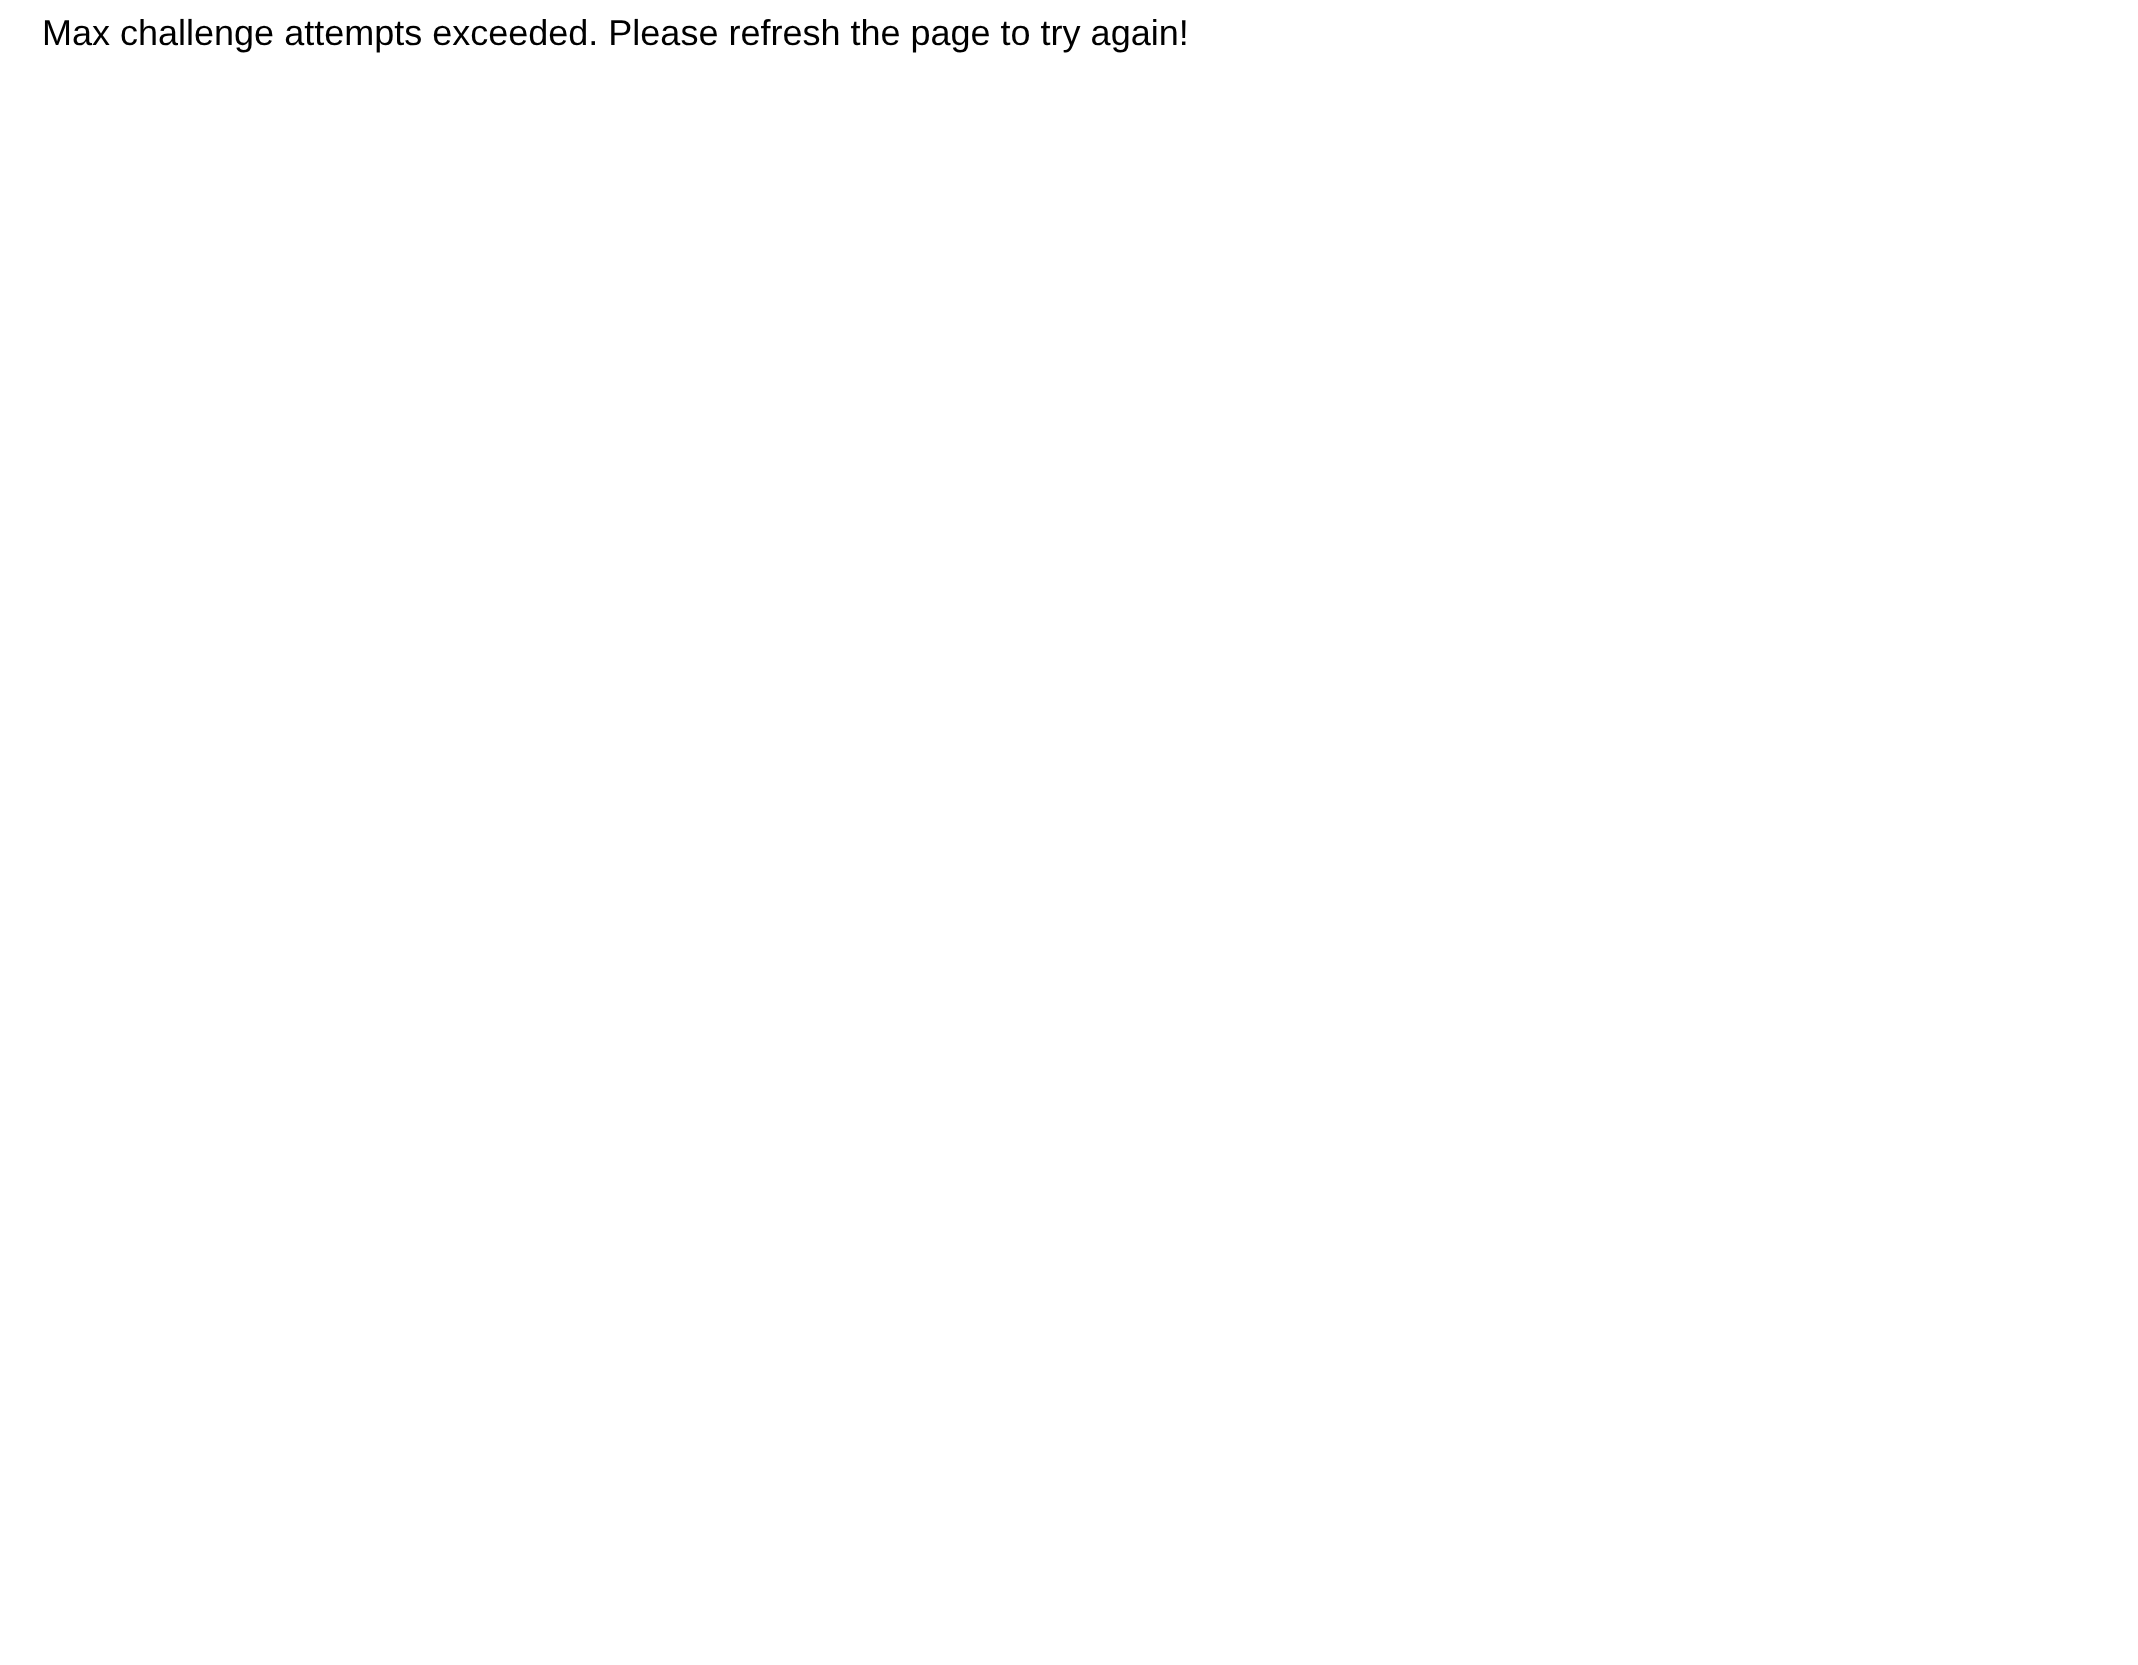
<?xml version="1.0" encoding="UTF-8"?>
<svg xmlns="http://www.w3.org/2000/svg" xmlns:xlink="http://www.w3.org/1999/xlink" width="2138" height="1665">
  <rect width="100%" height="100%" fill="#ffffff" />
  <text x="42" y="45" style="font-family: Liberation Sans; font-size: 36px; fill: #000000">Max challenge attempts exceeded. Please refresh the page to try again!</text>
</svg>
